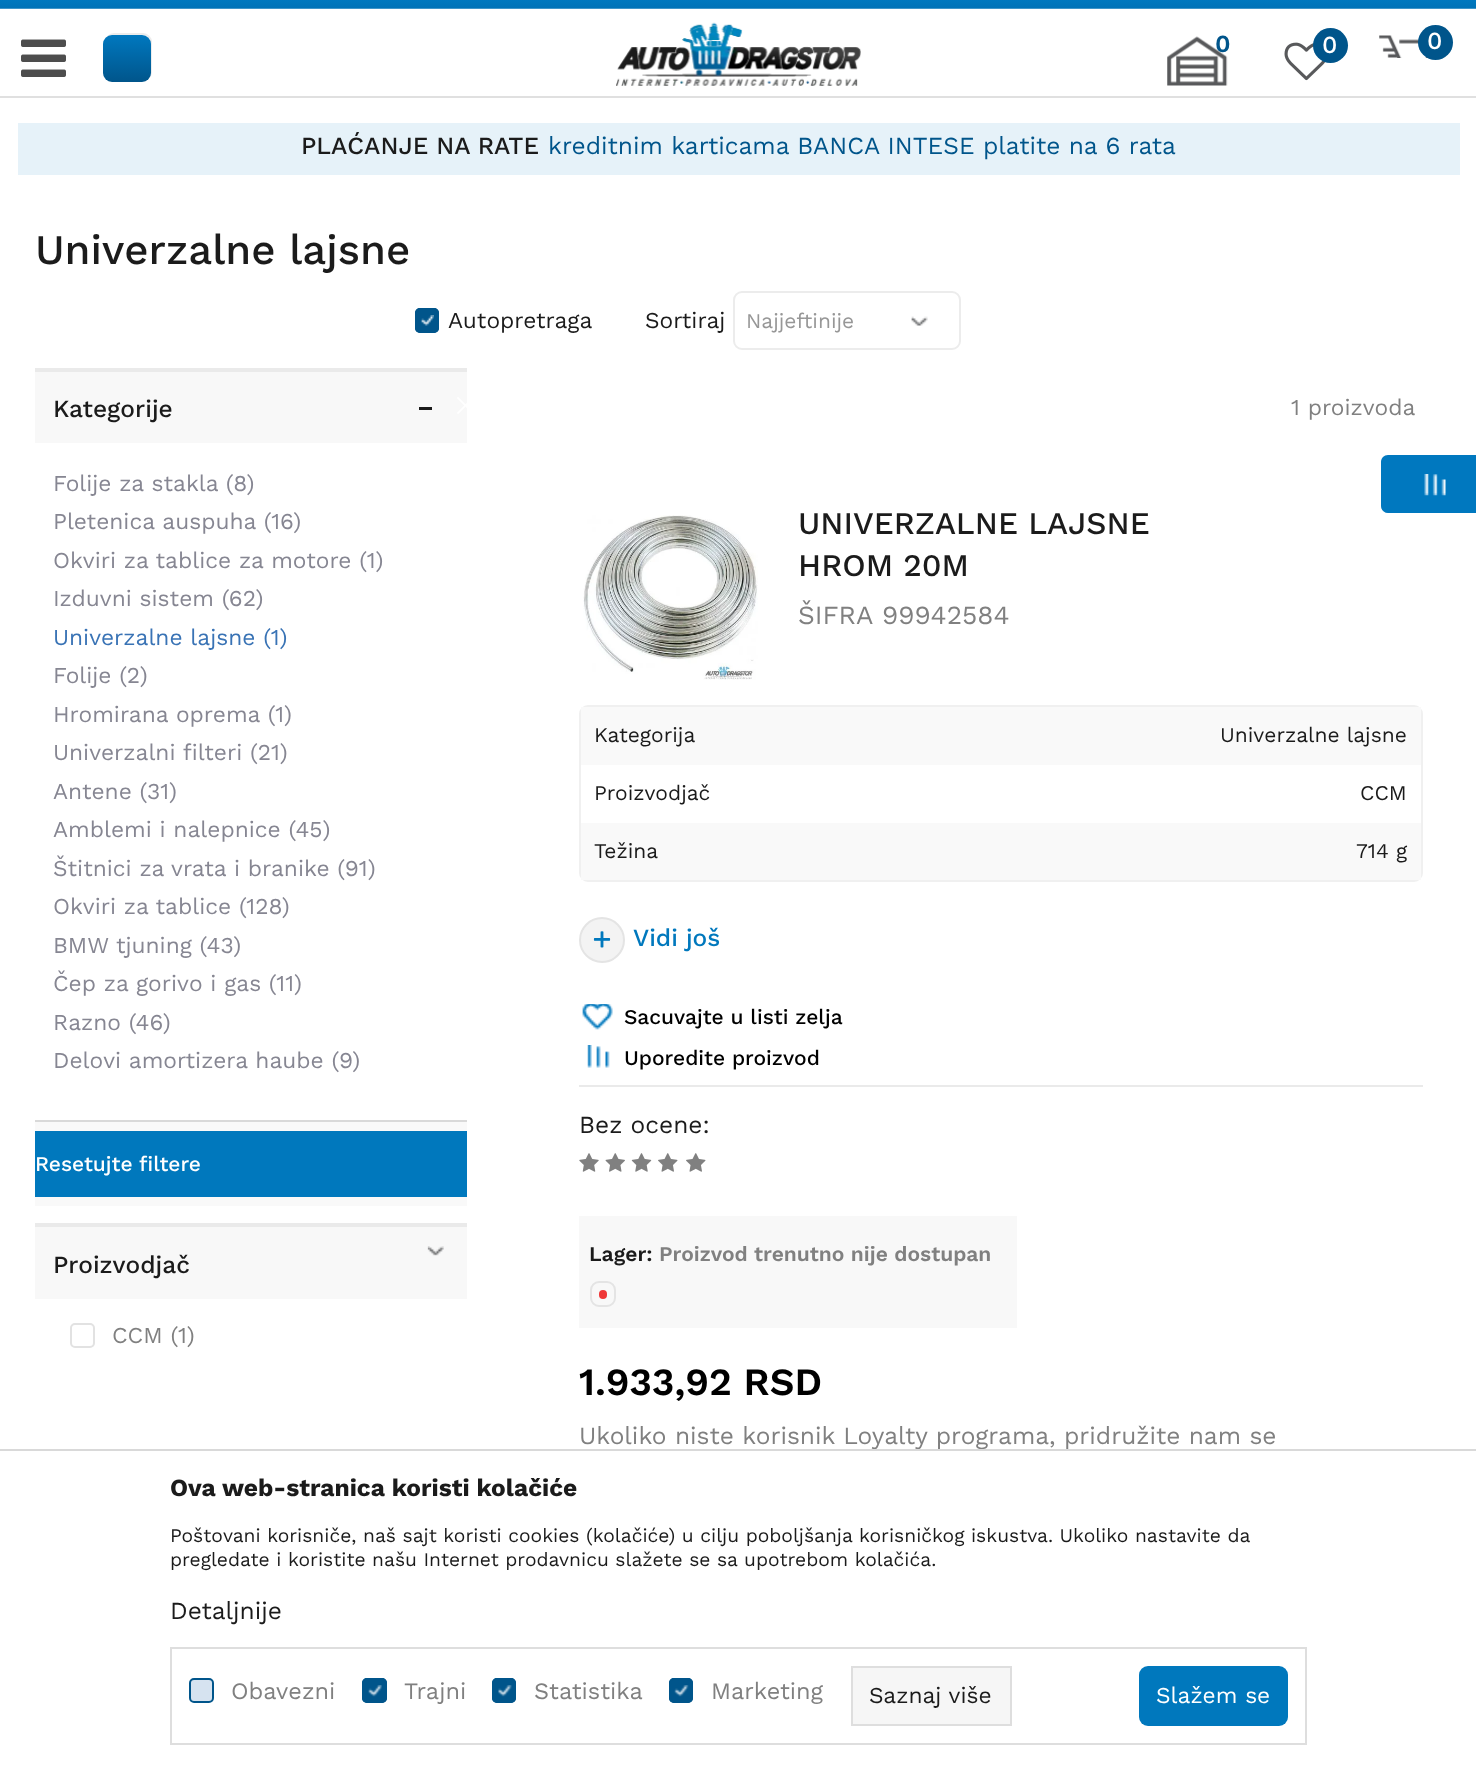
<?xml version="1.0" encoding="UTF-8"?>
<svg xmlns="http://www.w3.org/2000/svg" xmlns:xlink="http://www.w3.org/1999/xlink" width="1476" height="1783">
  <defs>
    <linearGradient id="g1" gradientUnits="userSpaceOnUse" x1="127" y1="82" x2="127" y2="35"><stop offset="0" stop-color="#00558b" /><stop offset="1" stop-color="#0078bf" /></linearGradient>
  </defs>
  <rect width="100%" height="100%" fill="#ffffff" />
  <rect y="96" width="1476" height="2" fill="#e0e0e0" />
  <image x="21" y="39" width="45" height="38" xlink:href="image1.png" />
  <image x="0" y="0" width="1476" height="9" xlink:href="image2.png" />
  <rect x="106" y="34" width="45" height="46" rx="8" fill="#f8f8f8" stroke="#ececec" stroke-width="2" />
  <rect x="103" y="35" width="48" height="47" rx="9" fill="url(#g1)" />
  <image x="616" y="22" width="245" height="64" xlink:href="image3.png" />
  <image x="1167" y="36" width="61" height="50" xlink:href="image4.png" />
  <image x="1284" y="42" width="42" height="39" xlink:href="image5.png" />
  <circle cx="1330.5" cy="45.5" r="17.5" fill="#00558b" />
  <image x="1379" y="35" width="49" height="23" xlink:href="image6.png" />
  <circle cx="1435.5" cy="42.5" r="17.5" fill="#00558b" />
  <rect x="18" y="123" width="1442" height="52" fill="#e6f2f9" />
  <rect x="415" y="308" width="24" height="25" rx="5" fill="#00558b" />
  <image x="421" y="315" width="13" height="11" xlink:href="image7.png" />
  <rect x="416" y="309" width="22" height="23" rx="4" fill="none" stroke="#00558b" stroke-width="2" />
  <image x="911" y="316" width="17" height="10" xlink:href="image8.png" />
  <rect x="734" y="292" width="226" height="57" rx="8" fill="none" stroke="#ececec" stroke-width="2" />
  <rect x="35" y="372" width="432" height="71" fill="#f8f8f8" />
  <rect x="35" y="368" width="432" height="4" fill="#eaeaea" />
  <rect x="419" y="407" width="13" height="3" fill="#1b1b1b" />
  <rect x="35" y="1122" width="432" height="84" fill="#f9f9f9" />
  <rect x="35" y="1120" width="432" height="2" fill="#d9d9d9" />
  <rect x="35" y="1131" width="432" height="66" fill="#0078bd" />
  <image x="457" y="397" width="10" height="17" xlink:href="image9.png" />
  <rect x="35" y="1227" width="432" height="72" fill="#f8f8f8" />
  <rect x="35" y="1223" width="432" height="4" fill="#eaeaea" />
  <image x="427" y="1246" width="17" height="10" xlink:href="image10.png" />
  <rect x="71" y="1324" width="23" height="23" rx="4" fill="none" stroke="#e2e2e2" stroke-width="2" />
  <image x="583" y="515" width="175" height="165" xlink:href="image11.png" />
  <rect x="580" y="706" width="842" height="175" rx="8" fill="none" stroke="#f0f0f0" stroke-width="2" />
  <rect x="581" y="707" width="840" height="58" fill="#f9f9f9" />
  <rect x="581" y="823" width="840" height="57" fill="#f9f9f9" />
  <circle cx="602" cy="940" r="22" fill="#f3f3f3" stroke="#e4e4e4" stroke-width="2" />
  <image x="593" y="931" width="18" height="17" xlink:href="image12.png" />
  <rect x="579" y="1085" width="844" height="2" fill="#eaeaea" />
  <image x="582" y="1004" width="31" height="26" xlink:href="image13.png" />
  <image x="587" y="1045" width="23" height="23" xlink:href="image14.png" />
  <image x="579" y="1153" width="20" height="19" xlink:href="image15.png" />
  <image x="605" y="1153" width="20" height="19" xlink:href="image16.png" />
  <image x="631" y="1153" width="21" height="19" xlink:href="image17.png" />
  <image x="658" y="1153" width="20" height="19" xlink:href="image18.png" />
  <image x="686" y="1153" width="20" height="19" xlink:href="image18.png" />
  <rect x="579" y="1216" width="438" height="112" fill="#f8f8f8" />
  <rect x="591" y="1282" width="24" height="24" rx="8" fill="none" stroke="#e4e4e4" stroke-width="2" />
  <rect x="599" y="1290" width="8" height="9" rx="4" fill="#ef3737" />
  <path d="M 1388 455 h 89 v 58 h -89 c -4 0 -7 -3 -7 -7 v -44 c 0 -4 3 -7 7 -7 z" fill="#0078bf" />
  <image x="1424" y="474" width="22" height="22" xlink:href="image19.png" />
  <text x="1215" y="52" style="font-family: Work Sans; font-size: 24.5px; font-weight: 600; fill: #00558b">0</text>
  <text x="1322" y="53" style="font-family: Work Sans; font-size: 24.5px; font-weight: 500; fill: #ffffff">0</text>
  <text x="1427" y="49" style="font-family: Work Sans; font-size: 24.5px; font-weight: 500; fill: #ffffff">0</text>
  <text x="301" y="154" style="font-family: Work Sans; font-size: 24.5px; font-weight: 500; fill: #1b1b1b">PLAĆANJE NA RATE</text>
  <text x="548" y="154" style="font-family: Work Sans; font-size: 24.5px; fill: #00558b">kreditnim karticama BANCA INTESE platite na 6 rata</text>
  <text x="35" y="264" style="font-family: Work Sans; font-size: 42px; font-weight: 500; fill: #1b1b1b">Univerzalne lajsne</text>
  <text x="448" y="328" style="font-family: Work Sans; font-size: 22.75px; fill: #1b1b1b">Autopretraga</text>
  <text x="645" y="328" style="font-family: Work Sans; font-size: 22.75px; fill: #1b1b1b">Sortiraj</text>
  <text x="746" y="328" style="font-family: Work Sans; font-size: 21px; fill: #979797">Najjeftinije</text>
  <text x="53" y="417" style="font-family: Work Sans; font-size: 24.5px; font-weight: 500; fill: #1b1b1b">Kategorije</text>
  <text x="53" y="491" style="font-family: Work Sans; font-size: 22.75px; fill: #868692">Folije za stakla (8)</text>
  <text x="53" y="529" style="font-family: Work Sans; font-size: 22.75px; fill: #868692">Pletenica auspuha (16)</text>
  <text x="53" y="568" style="font-family: Work Sans; font-size: 22.75px; fill: #868692">Okviri za tablice za motore (1)</text>
  <text x="53" y="606" style="font-family: Work Sans; font-size: 22.75px; fill: #868692">Izduvni sistem (62)</text>
  <text x="53" y="645" style="font-family: Work Sans; font-size: 22.75px; fill: #3973b5">Univerzalne lajsne (1)</text>
  <text x="53" y="683" style="font-family: Work Sans; font-size: 22.75px; fill: #868692">Folije (2)</text>
  <text x="53" y="722" style="font-family: Work Sans; font-size: 22.75px; fill: #868692">Hromirana oprema (1)</text>
  <text x="53" y="760" style="font-family: Work Sans; font-size: 22.75px; fill: #868692">Univerzalni filteri (21)</text>
  <text x="53" y="799" style="font-family: Work Sans; font-size: 22.75px; fill: #868692">Antene (31)</text>
  <text x="53" y="837" style="font-family: Work Sans; font-size: 22.75px; fill: #868692">Amblemi i nalepnice (45)</text>
  <text x="53" y="876" style="font-family: Work Sans; font-size: 22.75px; fill: #868692">Štitnici za vrata i branike (91)</text>
  <text x="53" y="914" style="font-family: Work Sans; font-size: 22.75px; fill: #868692">Okviri za tablice (128)</text>
  <text x="53" y="953" style="font-family: Work Sans; font-size: 22.75px; fill: #868692">BMW tjuning (43)</text>
  <text x="53" y="991" style="font-family: Work Sans; font-size: 22.75px; fill: #868692">Čep za gorivo i gas (11)</text>
  <text x="53" y="1030" style="font-family: Work Sans; font-size: 22.75px; fill: #868692">Razno (46)</text>
  <text x="53" y="1068" style="font-family: Work Sans; font-size: 22.75px; fill: #868692">Delovi amortizera haube (9)</text>
  <text x="35" y="1171" style="font-family: Work Sans; font-size: 21px; font-weight: 500; fill: #ffffff">Resetujte filtere</text>
  <text x="53" y="1273" style="font-family: Work Sans; font-size: 24.5px; font-weight: 500; fill: #1b1b1b">Proizvodjač</text>
  <text x="112" y="1343" style="font-family: Work Sans; font-size: 22.75px; fill: #808080">CCM (1)</text>
  <text x="1291" y="415" style="font-family: Work Sans; font-size: 22.75px; fill: #808080">1 proizvoda</text>
  <text x="798" y="534" style="font-family: Work Sans; font-size: 31.5px; font-weight: 500; fill: #1b1b1b">UNIVERZALNE LAJSNE</text>
  <text x="798" y="576" style="font-family: Work Sans; font-size: 31.5px; font-weight: 500; fill: #1b1b1b">HROM 20M</text>
  <text x="798" y="624" style="font-family: Work Sans; font-size: 26.25px; fill: #808080">ŠIFRA</text>
  <text x="882" y="624" style="font-family: Work Sans; font-size: 26.25px; fill: #808080">99942584</text>
  <text x="594" y="742" style="font-family: Work Sans; font-size: 21px; fill: #1b1b1b">Kategorija</text>
  <text x="1220" y="742" style="font-family: Work Sans; font-size: 21px; fill: #1b1b1b">Univerzalne lajsne</text>
  <text x="594" y="800" style="font-family: Work Sans; font-size: 21px; fill: #1b1b1b">Proizvodjač</text>
  <text x="1360" y="800" style="font-family: Work Sans; font-size: 21px; fill: #1b1b1b">CCM</text>
  <text x="594" y="858" style="font-family: Work Sans; font-size: 21px; fill: #1b1b1b">Težina</text>
  <text x="1356" y="858" style="font-family: Work Sans; font-size: 21px; fill: #1b1b1b">714 g</text>
  <text x="633" y="946" style="font-family: Work Sans; font-size: 24.5px; font-weight: 500; fill: #0078bd">Vidi još</text>
  <text x="624" y="1024" style="font-family: Work Sans; font-size: 21px; font-weight: 500; fill: #000000">Sacuvajte u listi zelja</text>
  <text x="624" y="1065" style="font-family: Work Sans; font-size: 21px; font-weight: 500; fill: #000000">Uporedite proizvod</text>
  <text x="579" y="1133" style="font-family: Work Sans; font-size: 24.5px; fill: #1b1b1b">Bez ocene:</text>
  <text x="589" y="1261" style="font-family: Work Sans; font-size: 21px; font-weight: 600; fill: #1b1b1b">Lager:</text>
  <text x="659" y="1261" style="font-family: Work Sans; font-size: 21px; font-weight: 600; fill: #808080">Proizvod trenutno nije dostupan</text>
  <text x="579" y="1395" style="font-family: Work Sans; font-size: 38.5px; font-weight: 600; fill: #000000">1.933,92 RSD</text>
  <text x="579" y="1444" style="font-family: Work Sans; font-size: 24.5px; fill: #808080">Ukoliko niste korisnik Loyalty programa, pridružite nam se</text>
  <rect x="-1" y="1450" width="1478" height="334" fill="none" stroke="#d9d9d9" stroke-width="2" />
  <text x="170" y="1496" style="font-family: Work Sans; font-size: 24.5px; font-weight: bold; fill: #1b1b1b">Ova web-stranica koristi kolačiće</text>
  <text x="170" y="1542" style="font-family: Work Sans; font-size: 19.25px; fill: #1b1b1b">Poštovani korisniče, naš sajt koristi cookies (kolačiće) u cilju poboljšanja korisničkog iskustva. Ukoliko nastavite da</text>
  <text x="170" y="1566" style="font-family: Work Sans; font-size: 19.25px; fill: #1b1b1b">pregledate i koristite našu Internet prodavnicu slažete se sa upotrebom kolačića.</text>
  <text x="170" y="1619" style="font-family: Work Sans; font-size: 24.5px; fill: #1b1b1b">Detaljnije</text>
  <rect x="171" y="1648" width="1135" height="96" fill="none" stroke="#dedede" stroke-width="2" />
  <rect x="190" y="1679" width="23" height="23" rx="4" fill="#d6e3f0" stroke="#00558b" stroke-width="2" />
  <text x="231" y="1699" style="font-family: Work Sans; font-size: 23.5px; fill: #808080">Obavezni</text>
  <rect x="362" y="1678" width="25" height="25" rx="5" fill="#00558b" />
  <image x="368" y="1685" width="14" height="12" xlink:href="image20.png" />
  <rect x="363" y="1679" width="23" height="23" rx="4" fill="none" stroke="#00558b" stroke-width="2" />
  <text x="404" y="1699" style="font-family: Work Sans; font-size: 23.5px; fill: #808080">Trajni</text>
  <rect x="492" y="1678" width="24" height="25" rx="5" fill="#00558b" />
  <image x="498" y="1685" width="14" height="12" xlink:href="image21.png" />
  <rect x="493" y="1679" width="22" height="23" rx="4" fill="none" stroke="#00558b" stroke-width="2" />
  <text x="534" y="1699" style="font-family: Work Sans; font-size: 23.5px; fill: #808080">Statistika</text>
  <rect x="669" y="1678" width="24" height="25" rx="5" fill="#00558b" />
  <image x="674" y="1685" width="15" height="12" xlink:href="image22.png" />
  <rect x="670" y="1679" width="22" height="23" rx="4" fill="none" stroke="#00558b" stroke-width="2" />
  <text x="711" y="1699" style="font-family: Work Sans; font-size: 23.5px; fill: #808080">Marketing</text>
  <rect x="852" y="1667" width="159" height="58" fill="#f6f6f6" stroke="#dedede" stroke-width="2" />
  <text x="869" y="1703" style="font-family: Work Sans; font-size: 22.75px; fill: #1b1b1b">Saznaj više</text>
  <rect x="1139" y="1666" width="149" height="60" rx="9" fill="#0078bd" />
  <text x="1156" y="1703" style="font-family: Work Sans; font-size: 22.75px; fill: #ffffff">Slažem se</text>
</svg>
